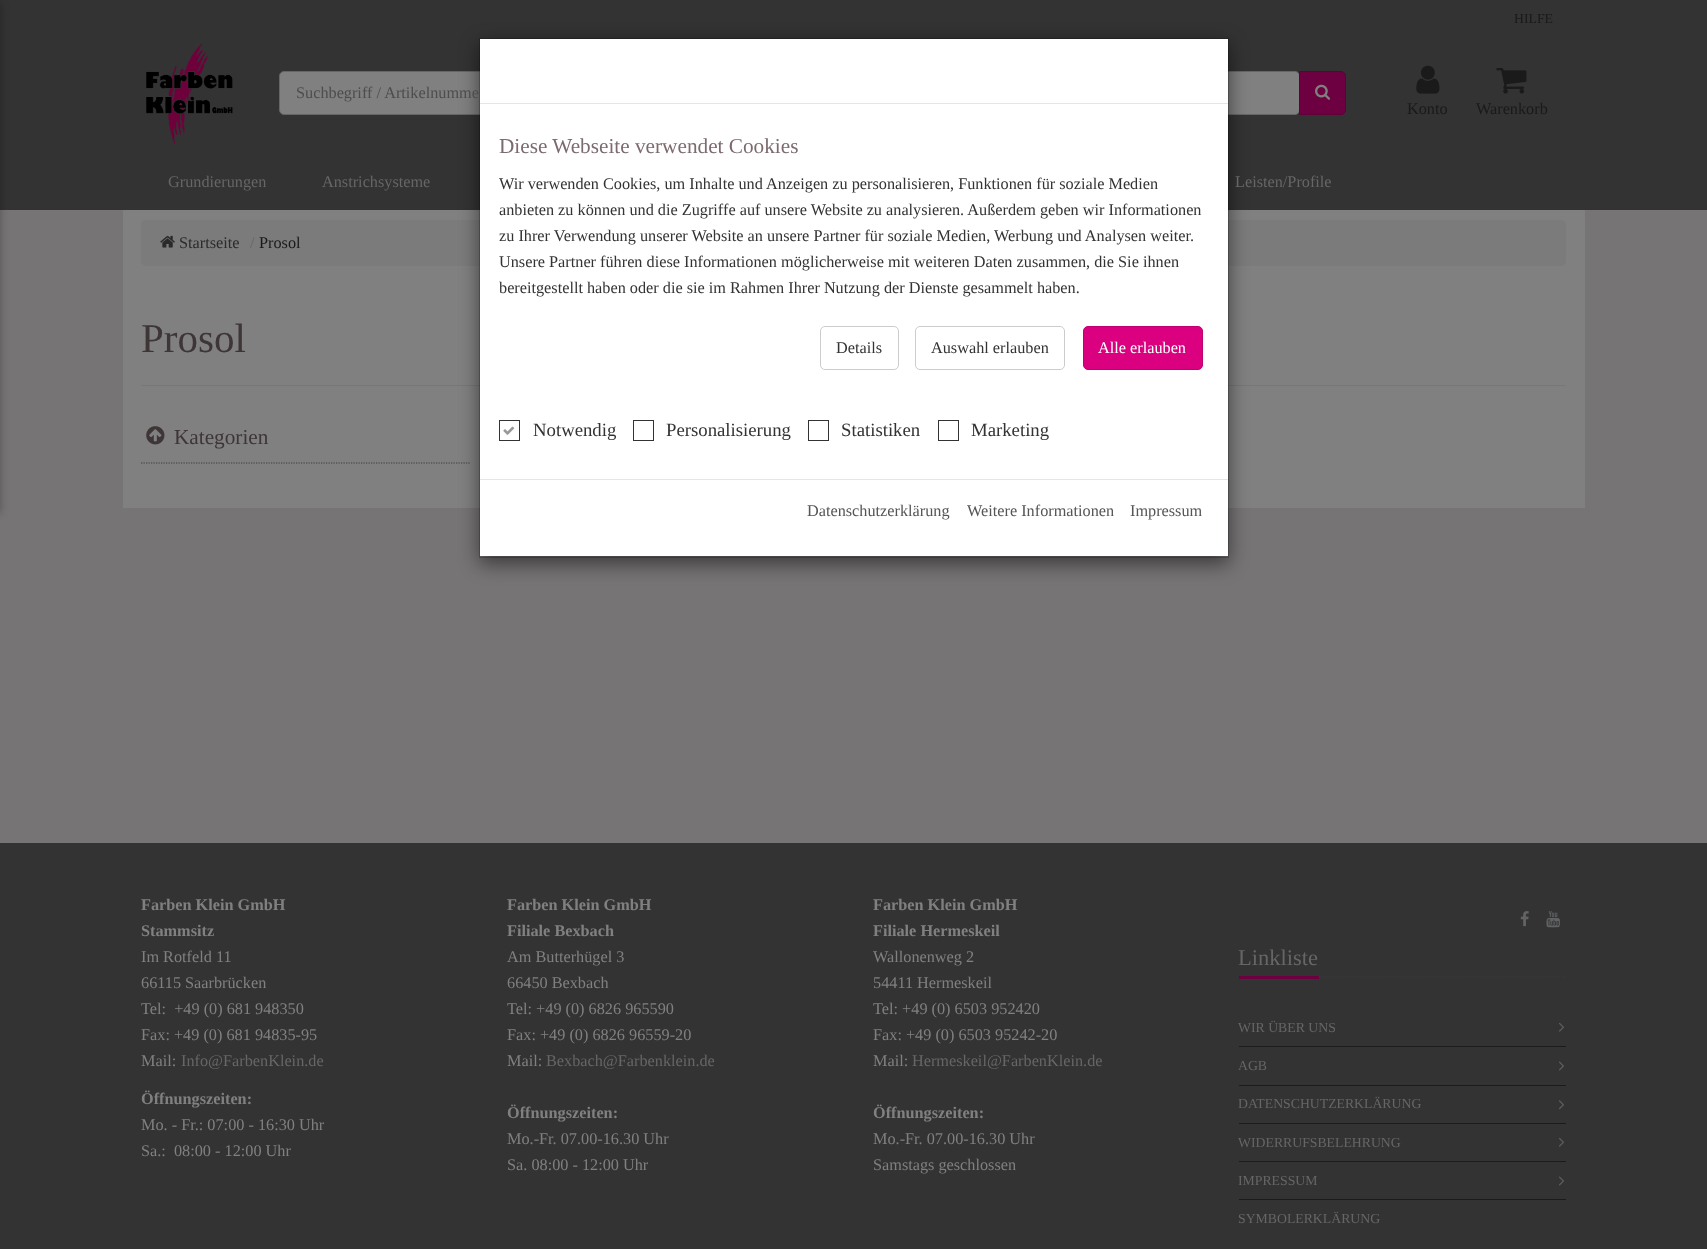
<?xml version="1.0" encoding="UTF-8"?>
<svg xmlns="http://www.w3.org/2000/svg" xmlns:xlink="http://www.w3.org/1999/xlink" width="1707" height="1249">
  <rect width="100%" height="100%" fill="#777476" />
  <rect width="1707" height="210" fill="#333333" />
  <rect x="-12" y="3" width="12" height="510" fill="#000000" fill-opacity="0.3" filter="blur(4px)" />
  <image x="146" y="44" width="87" height="100" xlink:href="image1.png" />
  <rect x="279.5" y="71.5" width="1020" height="43" rx="4.5" fill="#808080" stroke="#666666" />
  <path d="M 1299.5 71.5 h 41.5 c 2.5 0 4.5 2 4.5 4.5 v 34 c 0 2.5 -2 4.5 -4.5 4.5 h -41.5 z" fill="#6d0040" stroke="#610038" />
  <image x="1315" y="84" width="16" height="16" xlink:href="image2.png" />
  <image x="1416" y="65" width="24" height="29" xlink:href="image3.png" />
  <image x="1496" y="68" width="31" height="26" xlink:href="image4.png" />
  <rect x="123" y="210" width="1462" height="298" fill="#808080" />
  <rect x="141" y="220" width="1425" height="46" rx="5" fill="#7b7b7b" />
  <image x="160" y="235" width="15" height="13" xlink:href="image5.png" />
  <rect x="141" y="385" width="1425" height="1" fill="#777777" />
  <path d="M 141 463 h 329" fill="none" stroke="#3c3c3c" stroke-width="1.2" stroke-dasharray="1.25 1.25" />
  <image x="146" y="426" width="19" height="19" xlink:href="image6.png" />
  <rect y="843" width="1707" height="406" fill="#333333" />
  <image x="1520" y="911" width="9" height="16" xlink:href="image7.png" />
  <image x="1546" y="911" width="14" height="17" xlink:href="image8.png" />
  <path d="M 1239 977 h 327" fill="none" stroke="#3c3c3c" stroke-width="1.2" stroke-dasharray="1.25 1.25" />
  <rect x="1239" y="976" width="80" height="3" fill="#6d0040" />
  <image x="1559" y="1022" width="5" height="10" xlink:href="image9.png" />
  <rect x="1239" y="1046" width="327" height="1" fill="#1b1b1b" />
  <image x="1559" y="1061" width="5" height="10" xlink:href="image10.png" />
  <rect x="1239" y="1085" width="327" height="1" fill="#1b1b1b" />
  <image x="1559" y="1100" width="5" height="10" xlink:href="image11.png" />
  <rect x="1239" y="1123" width="327" height="1" fill="#1b1b1b" />
  <image x="1559" y="1137" width="5" height="10" xlink:href="image9.png" />
  <rect x="1239" y="1161" width="327" height="1" fill="#1b1b1b" />
  <image x="1559" y="1176" width="5" height="10" xlink:href="image10.png" />
  <rect x="1239" y="1199" width="327" height="1" fill="#1b1b1b" />
  <rect x="479" y="44" width="750" height="520" fill="#000000" fill-opacity="0.5" filter="blur(9.5px)" />
  <rect x="480" y="39" width="748" height="517" fill="#ffffff" />
  <rect x="479.5" y="38.5" width="749" height="519" fill="none" stroke="#000000" stroke-opacity="0.2" />
  <rect x="480" y="103" width="748" height="1" fill="#e5e5e5" />
  <rect x="820.5" y="326.5" width="78" height="43" rx="4.5" fill="none" stroke="#cccccc" />
  <rect x="915.5" y="326.5" width="149" height="43" rx="4.5" fill="none" stroke="#cccccc" />
  <rect x="1083.5" y="326.5" width="119" height="43" rx="4.5" fill="#da007f" stroke="#c10070" />
  <rect x="499.5" y="420.5" width="20" height="20" fill="none" stroke="#333333" />
  <image x="503" y="426" width="12" height="9" xlink:href="image12.png" />
  <rect x="633.5" y="420.5" width="20" height="20" fill="none" stroke="#333333" />
  <rect x="808.5" y="420.5" width="20" height="20" fill="none" stroke="#333333" />
  <rect x="938.5" y="420.5" width="20" height="20" fill="none" stroke="#333333" />
  <rect x="480" y="479" width="748" height="1" fill="#e5e5e5" />
  <text x="1514" y="23" style="font-family: Liberation Serif; font-size: 13.75px; fill: #1a1a1a">HILFE</text>
  <text x="296" y="98" style="font-family: Liberation Serif; font-size: 16.25px; fill: #4d4d4d">Suchbegriff / Artikelnumme</text>
  <text x="1407" y="114" style="font-family: Liberation Serif; font-size: 16.25px; fill: #1a1a1a">Konto</text>
  <text x="1476" y="114" style="font-family: Liberation Serif; font-size: 16.25px; fill: #1a1a1a">Warenkorb</text>
  <text x="168" y="187" style="font-family: Liberation Serif; font-size: 16.25px; fill: #666666">Grundierungen</text>
  <text x="322" y="187" style="font-family: Liberation Serif; font-size: 16.25px; fill: #666666">Anstrichsysteme</text>
  <text x="1235" y="187" style="font-family: Liberation Serif; font-size: 16.25px; fill: #666666">Leisten/Profile</text>
  <text x="179" y="248" style="font-family: Liberation Serif; font-size: 16.25px; fill: #2b2b2b">Startseite</text>
  <text x="250" y="248" style="font-family: Liberation Serif; font-size: 16.25px; fill: #666666">/</text>
  <text x="259" y="248" style="font-family: Liberation Serif; font-size: 16.25px; fill: #1a1a1a">Prosol</text>
  <text x="141" y="352" style="font-family: Liberation Serif; font-size: 41px; fill: #3e3537">Prosol</text>
  <text x="174" y="444" style="font-family: Liberation Serif; font-size: 21.25px; fill: #3e3537">Kategorien</text>
  <text x="141" y="910" style="font-family: Liberation Serif; font-size: 16.25px; font-weight: bold; fill: #808080">Farben Klein GmbH</text>
  <text x="141" y="936" style="font-family: Liberation Serif; font-size: 16.25px; font-weight: bold; fill: #808080">Stammsitz</text>
  <text x="141" y="962" style="font-family: Liberation Serif; font-size: 16.25px; fill: #808080">Im Rotfeld 11</text>
  <text x="141" y="988" style="font-family: Liberation Serif; font-size: 16.25px; fill: #808080">66115 Saarbrücken</text>
  <text x="141" y="1014" style="font-family: Liberation Serif; font-size: 16.25px; fill: #808080" xml:space="preserve">Tel:  +49 (0) 681 948350</text>
  <text x="141" y="1040" style="font-family: Liberation Serif; font-size: 16.25px; fill: #808080">Fax: +49 (0) 681 94835-95</text>
  <text x="141" y="1066" style="font-family: Liberation Serif; font-size: 16.25px; fill: #808080">Mail:</text>
  <text x="181" y="1066" style="font-family: Liberation Serif; font-size: 16.25px; fill: #666666">Info@FarbenKlein.de</text>
  <text x="141" y="1104" style="font-family: Liberation Serif; font-size: 16.25px; font-weight: bold; fill: #808080">Öffnungszeiten:</text>
  <text x="141" y="1130" style="font-family: Liberation Serif; font-size: 16.25px; fill: #808080">Mo. - Fr.: 07:00 - 16:30 Uhr</text>
  <text x="141" y="1156" style="font-family: Liberation Serif; font-size: 16.25px; fill: #808080" xml:space="preserve">Sa.:  08:00 - 12:00 Uhr</text>
  <text x="507" y="910" style="font-family: Liberation Serif; font-size: 16.25px; font-weight: bold; fill: #808080">Farben Klein GmbH</text>
  <text x="507" y="936" style="font-family: Liberation Serif; font-size: 16.25px; font-weight: bold; fill: #808080">Filiale Bexbach</text>
  <text x="507" y="962" style="font-family: Liberation Serif; font-size: 16.25px; fill: #808080">Am Butterhügel 3</text>
  <text x="507" y="988" style="font-family: Liberation Serif; font-size: 16.25px; fill: #808080">66450 Bexbach</text>
  <text x="507" y="1014" style="font-family: Liberation Serif; font-size: 16.25px; fill: #808080">Tel: +49 (0) 6826 965590</text>
  <text x="507" y="1040" style="font-family: Liberation Serif; font-size: 16.25px; fill: #808080">Fax: +49 (0) 6826 96559-20</text>
  <text x="507" y="1066" style="font-family: Liberation Serif; font-size: 16.25px; fill: #808080">Mail:</text>
  <text x="546" y="1066" style="font-family: Liberation Serif; font-size: 16.25px; fill: #666666">Bexbach@Farbenklein.de</text>
  <text x="507" y="1118" style="font-family: Liberation Serif; font-size: 16.25px; font-weight: bold; fill: #808080">Öffnungszeiten:</text>
  <text x="507" y="1144" style="font-family: Liberation Serif; font-size: 16.25px; fill: #808080">Mo.-Fr. 07.00-16.30 Uhr</text>
  <text x="507" y="1170" style="font-family: Liberation Serif; font-size: 16.25px; fill: #808080">Sa. 08:00 - 12:00 Uhr</text>
  <text x="873" y="910" style="font-family: Liberation Serif; font-size: 16.25px; font-weight: bold; fill: #808080">Farben Klein GmbH</text>
  <text x="873" y="936" style="font-family: Liberation Serif; font-size: 16.25px; font-weight: bold; fill: #808080">Filiale Hermeskeil</text>
  <text x="873" y="962" style="font-family: Liberation Serif; font-size: 16.25px; fill: #808080">Wallonenweg 2</text>
  <text x="873" y="988" style="font-family: Liberation Serif; font-size: 16.25px; fill: #808080">54411 Hermeskeil</text>
  <text x="873" y="1014" style="font-family: Liberation Serif; font-size: 16.25px; fill: #808080">Tel: +49 (0) 6503 952420</text>
  <text x="873" y="1040" style="font-family: Liberation Serif; font-size: 16.25px; fill: #808080">Fax: +49 (0) 6503 95242-20</text>
  <text x="873" y="1066" style="font-family: Liberation Serif; font-size: 16.25px; fill: #808080">Mail:</text>
  <text x="912" y="1066" style="font-family: Liberation Serif; font-size: 16.25px; fill: #666666">Hermeskeil@FarbenKlein.de</text>
  <text x="873" y="1118" style="font-family: Liberation Serif; font-size: 16.25px; font-weight: bold; fill: #808080">Öffnungszeiten:</text>
  <text x="873" y="1144" style="font-family: Liberation Serif; font-size: 16.25px; fill: #808080">Mo.-Fr. 07.00-16.30 Uhr</text>
  <text x="873" y="1170" style="font-family: Liberation Serif; font-size: 16.25px; fill: #808080">Samstags geschlossen</text>
  <text x="1238" y="965" style="font-family: Liberation Serif; font-size: 22.5px; fill: #666666">Linkliste</text>
  <text x="1238" y="1032" style="font-family: Liberation Serif; font-size: 13.75px; fill: #666666">WIR ÜBER UNS</text>
  <text x="1238" y="1070" style="font-family: Liberation Serif; font-size: 13.75px; fill: #666666">AGB</text>
  <text x="1238" y="1108" style="font-family: Liberation Serif; font-size: 13.75px; fill: #666666">DATENSCHUTZERKLÄRUNG</text>
  <text x="1238" y="1147" style="font-family: Liberation Serif; font-size: 13.75px; fill: #666666">WIDERRUFSBELEHRUNG</text>
  <text x="1238" y="1185" style="font-family: Liberation Serif; font-size: 13.75px; fill: #666666">IMPRESSUM</text>
  <text x="1238" y="1223" style="font-family: Liberation Serif; font-size: 13.75px; fill: #666666">SYMBOLERKLÄRUNG</text>
  <text x="499" y="153" style="font-family: Liberation Serif; font-size: 21.25px; fill: #7c6a6e">Diese Webseite verwendet Cookies</text>
  <text x="499" y="189" style="font-family: Liberation Serif; font-size: 16.25px; fill: #333333">Wir verwenden Cookies, um Inhalte und Anzeigen zu personalisieren, Funktionen für soziale Medien</text>
  <text x="499" y="215" style="font-family: Liberation Serif; font-size: 16.25px; fill: #333333">anbieten zu können und die Zugriffe auf unsere Website zu analysieren. Außerdem geben wir Informationen</text>
  <text x="499" y="241" style="font-family: Liberation Serif; font-size: 16.25px; fill: #333333">zu Ihrer Verwendung unserer Website an unsere Partner für soziale Medien, Werbung und Analysen weiter.</text>
  <text x="499" y="267" style="font-family: Liberation Serif; font-size: 16.25px; fill: #333333">Unsere Partner führen diese Informationen möglicherweise mit weiteren Daten zusammen, die Sie ihnen</text>
  <text x="499" y="293" style="font-family: Liberation Serif; font-size: 16.25px; fill: #333333">bereitgestellt haben oder die sie im Rahmen Ihrer Nutzung der Dienste gesammelt haben.</text>
  <text x="836" y="353" style="font-family: Liberation Serif; font-size: 16.25px; fill: #333333">Details</text>
  <text x="931" y="353" style="font-family: Liberation Serif; font-size: 16.25px; fill: #333333">Auswahl erlauben</text>
  <text x="1098" y="353" style="font-family: Liberation Serif; font-size: 16.25px; fill: #ffffff">Alle erlauben</text>
  <text x="533" y="436" style="font-family: Liberation Serif; font-size: 18.75px; fill: #333333">Notwendig</text>
  <text x="666" y="436" style="font-family: Liberation Serif; font-size: 18.75px; fill: #333333">Personalisierung</text>
  <text x="841" y="436" style="font-family: Liberation Serif; font-size: 18.75px; fill: #333333">Statistiken</text>
  <text x="971" y="436" style="font-family: Liberation Serif; font-size: 18.75px; fill: #333333">Marketing</text>
  <text x="807" y="516" style="font-family: Liberation Serif; font-size: 16.25px; fill: #555555">Datenschutzerklärung</text>
  <text x="967" y="516" style="font-family: Liberation Serif; font-size: 16.25px; fill: #555555">Weitere Informationen</text>
  <text x="1130" y="516" style="font-family: Liberation Serif; font-size: 16.25px; fill: #555555">Impressum</text>
</svg>
